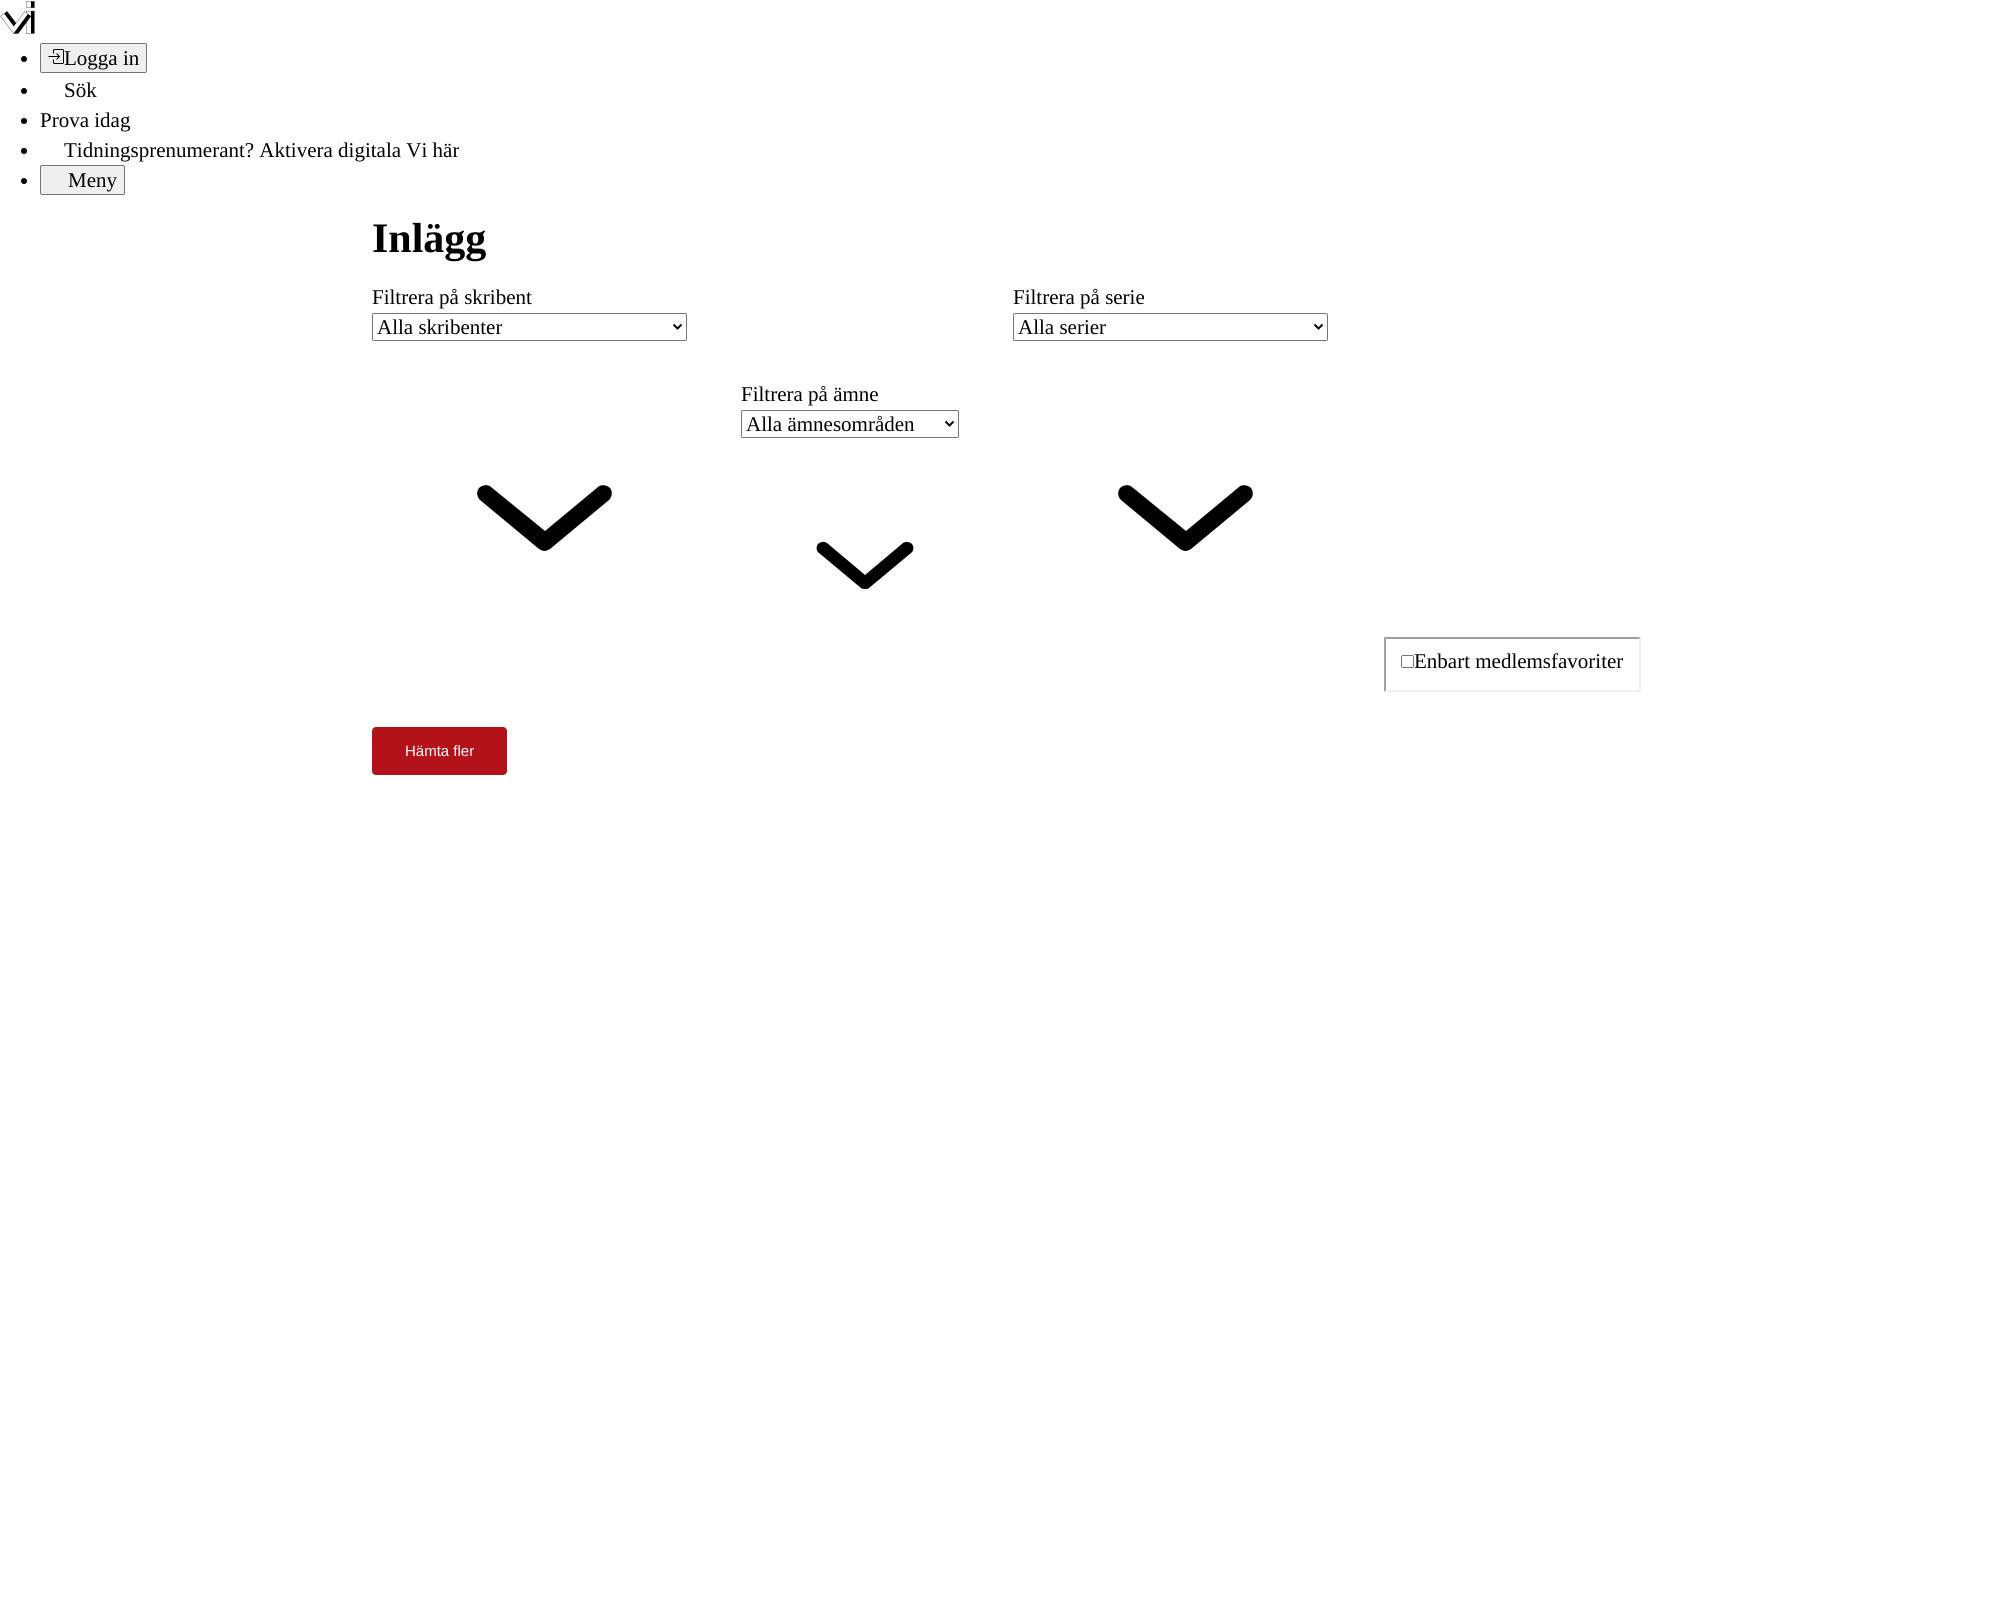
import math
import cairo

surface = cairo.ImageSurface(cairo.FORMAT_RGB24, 2015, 1605)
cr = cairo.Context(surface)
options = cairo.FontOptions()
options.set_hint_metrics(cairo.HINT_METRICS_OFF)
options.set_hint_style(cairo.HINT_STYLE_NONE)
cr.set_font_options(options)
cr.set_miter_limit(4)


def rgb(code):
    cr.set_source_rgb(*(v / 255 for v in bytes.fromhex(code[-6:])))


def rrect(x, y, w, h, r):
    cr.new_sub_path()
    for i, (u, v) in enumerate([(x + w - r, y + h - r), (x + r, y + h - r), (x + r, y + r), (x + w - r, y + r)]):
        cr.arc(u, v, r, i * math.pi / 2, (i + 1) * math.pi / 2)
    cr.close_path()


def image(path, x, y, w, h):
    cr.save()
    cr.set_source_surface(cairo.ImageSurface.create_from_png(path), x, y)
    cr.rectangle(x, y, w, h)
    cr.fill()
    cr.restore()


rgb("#ffffff")
cr.paint()
image("img/1.png", 0, 1, 35, 33)
rgb("#000000")
cr.arc(24, 59, 3, 0, 2 * math.pi)
cr.fill()
rgb("#efefef")
rrect(40.5, 43.5, 106, 29, 1.5)
cr.fill_preserve()
rgb("#767676")
cr.set_line_width(1)
cr.stroke()
image("img/2.png", 48, 49, 16, 15)
rgb("#000000")
cr.arc(24, 91, 3, 0, 2 * math.pi)
cr.fill()
cr.arc(24, 121, 3, 0, 2 * math.pi)
cr.fill()
cr.arc(24, 151, 3, 0, 2 * math.pi)
cr.fill()
cr.arc(24, 181, 3, 0, 2 * math.pi)
cr.fill()
rgb("#efefef")
rrect(40.5, 165.5, 84, 29, 1.5)
cr.fill_preserve()
rgb("#767676")
cr.stroke()
rrect(372.5, 313.5, 314, 27, 1.5)
cr.stroke()
cr.new_path()
cr.move_to(673.5, 324.5)
cr.line_to(677.5, 328.5)
cr.line_to(681.5, 324.5)
rgb("#000000")
cr.set_line_width(2)
cr.stroke()
cr.new_path()
cr.move_to(545, 551)
cr.curve_to(542, 551, 541, 550, 539, 549)
cr.line_to(480, 500)
cr.curve_to(477, 497, 476, 492, 479, 488)
cr.curve_to(482, 485, 488, 484, 491, 487)
cr.line_to(545, 531)
cr.line_to(598, 487)
cr.curve_to(601, 484, 607, 485, 610, 488)
cr.curve_to(613, 492, 612, 497, 609, 500)
cr.line_to(550, 549)
cr.curve_to(548, 550, 546, 551, 545, 551)
cr.close_path()
cr.fill()
rrect(1013.5, 313.5, 314, 27, 1.5)
rgb("#767676")
cr.set_line_width(1)
cr.stroke()
cr.new_path()
cr.move_to(1314.5, 324.5)
cr.line_to(1318.5, 328.5)
cr.line_to(1322.5, 324.5)
rgb("#000000")
cr.set_line_width(2)
cr.stroke()
cr.new_path()
cr.move_to(1186, 551)
cr.curve_to(1183, 551, 1182, 550, 1180, 549)
cr.line_to(1121, 500)
cr.curve_to(1118, 497, 1117, 492, 1120, 488)
cr.curve_to(1123, 485, 1129, 484, 1132, 487)
cr.line_to(1186, 531)
cr.line_to(1239, 487)
cr.curve_to(1242, 484, 1248, 485, 1251, 488)
cr.curve_to(1254, 492, 1253, 497, 1250, 500)
cr.line_to(1191, 549)
cr.curve_to(1189, 550, 1187, 551, 1186, 551)
cr.close_path()
cr.fill()
rrect(741.5, 410.5, 217, 27, 1.5)
rgb("#767676")
cr.set_line_width(1)
cr.stroke()
cr.new_path()
cr.move_to(945.5, 421.5)
cr.line_to(949.5, 425.5)
cr.line_to(953.5, 421.5)
rgb("#000000")
cr.set_line_width(2)
cr.stroke()
cr.new_path()
cr.move_to(865, 589)
cr.curve_to(864, 589, 862, 589, 861, 588)
cr.line_to(819, 553)
cr.curve_to(816, 551, 816, 547, 818, 544)
cr.curve_to(820, 542, 824, 541, 827, 543)
cr.line_to(865, 575)
cr.line_to(903, 543)
cr.curve_to(906, 541, 910, 542, 912, 544)
cr.curve_to(914, 547, 914, 551, 911, 553)
cr.line_to(869, 588)
cr.curve_to(868, 589, 866, 589, 865, 589)
cr.close_path()
cr.fill()
rgb("#9f9f9f")
cr.new_path()
cr.move_to(1384, 637)
cr.line_to(1641, 637)
cr.line_to(1639, 639)
cr.line_to(1386, 639)
cr.close_path()
cr.fill()
rgb("#efefef")
cr.new_path()
cr.move_to(1641, 637)
cr.line_to(1641, 692)
cr.line_to(1639, 690)
cr.line_to(1639, 639)
cr.close_path()
cr.fill()
cr.new_path()
cr.move_to(1641, 692)
cr.line_to(1384, 692)
cr.line_to(1386, 690)
cr.line_to(1639, 690)
cr.close_path()
cr.fill()
rgb("#9f9f9f")
cr.new_path()
cr.move_to(1384, 692)
cr.line_to(1384, 637)
cr.line_to(1386, 639)
cr.line_to(1386, 690)
cr.close_path()
cr.fill()
rrect(1401.5, 655.5, 12, 12, 1.5)
rgb("#767676")
cr.set_line_width(1)
cr.stroke()
rgb("#b31218")
rrect(372, 727, 135, 48, 4)
cr.fill()
cr.select_font_face("Liberation Serif")
cr.set_font_size(21)
rgb("#000000")
for x, y, s in [
    (64, 65, "Logga in"),
    (64, 97, "Sök"),
    (40, 127, "Prova idag"),
    (64, 157, "Tidningsprenumerant? Aktivera digitala Vi här"),
    (68, 187, "Meny"),
]:
    cr.move_to(x, y)
    cr.show_text(s)
cr.select_font_face("Liberation Serif", cairo.FONT_SLANT_NORMAL, cairo.FONT_WEIGHT_BOLD)
cr.set_font_size(42)
cr.move_to(372, 252)
cr.show_text("Inlägg")
cr.select_font_face("Liberation Serif")
cr.set_font_size(21)
for x, y, s in [
    (372, 304, "Filtrera på skribent"),
    (377, 334, "Alla skribenter"),
    (1013, 304, "Filtrera på serie"),
    (1018, 334, "Alla serier"),
    (741, 401, "Filtrera på ämne"),
    (746, 431, "Alla ämnesområden"),
    (1414, 668, "Enbart medlemsfavoriter"),
]:
    cr.move_to(x, y)
    cr.show_text(s)
cr.select_font_face("Liberation Sans")
cr.set_font_size(15)
rgb("#ffffff")
cr.move_to(405, 756)
cr.show_text("Hämta fler")
surface.write_to_png("page.png")
